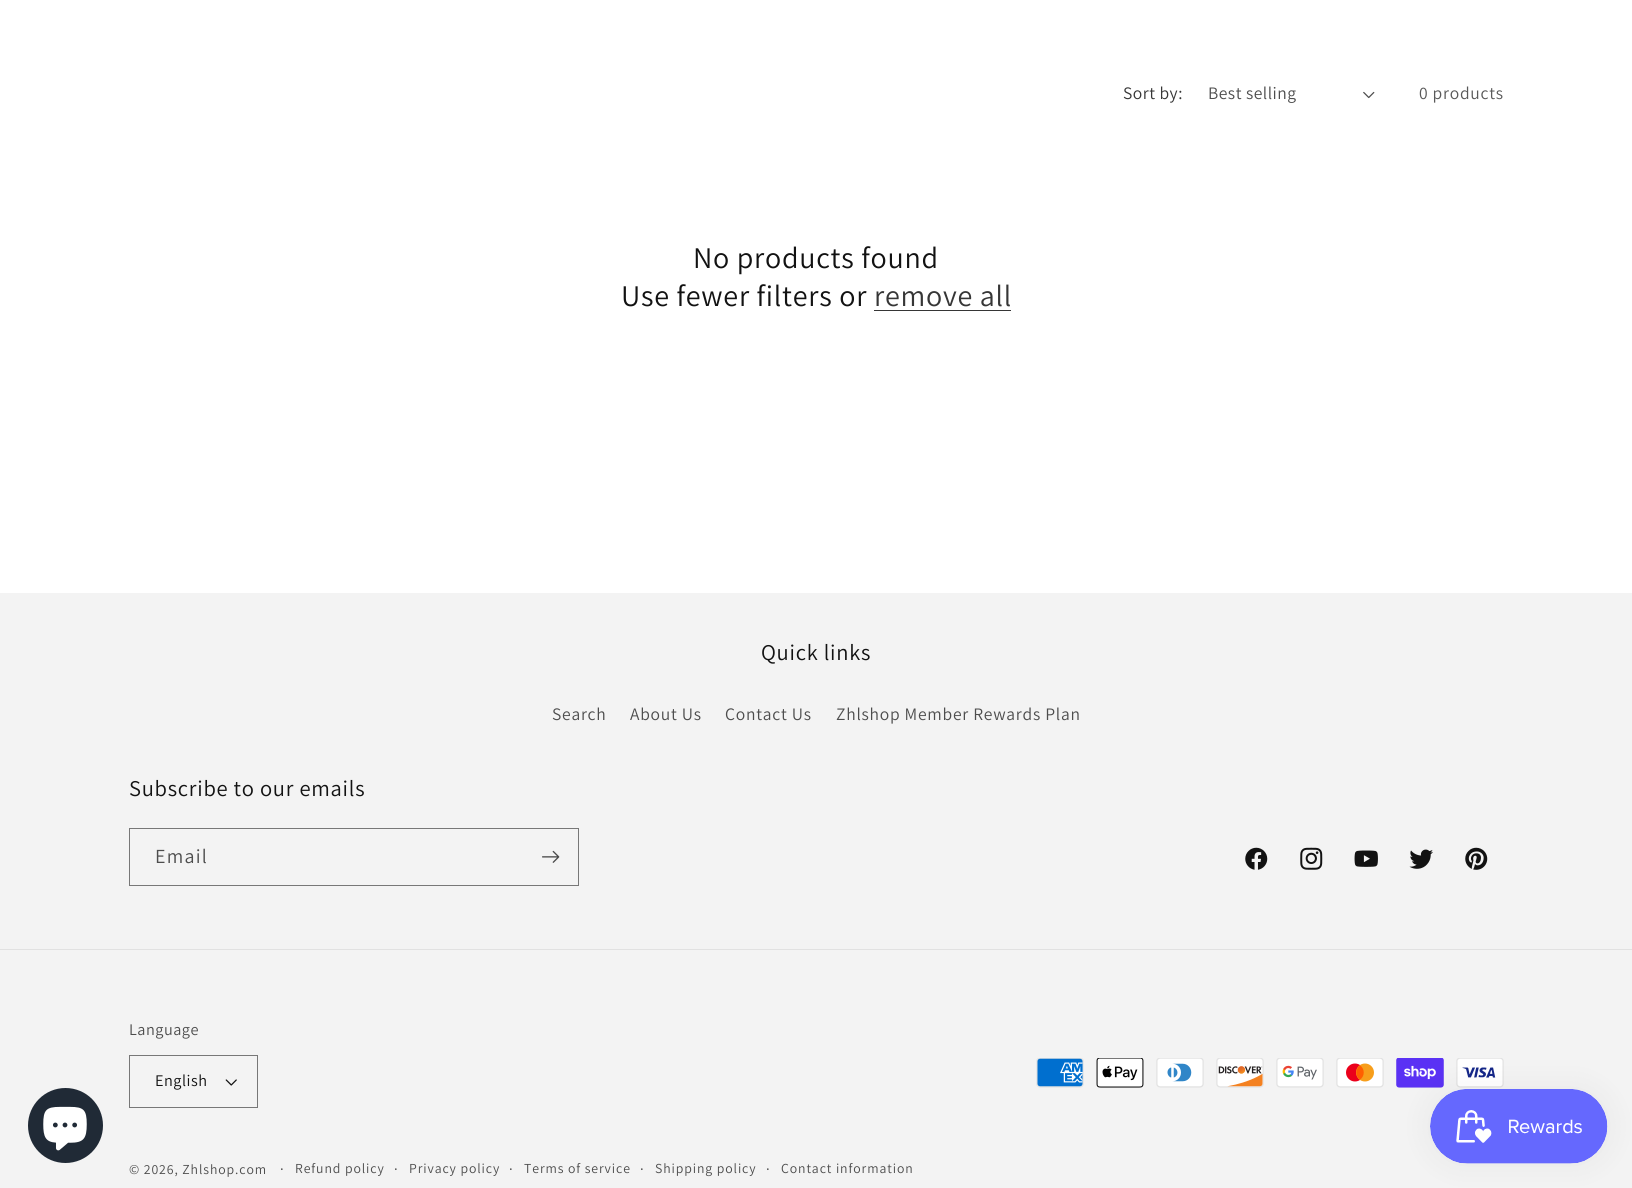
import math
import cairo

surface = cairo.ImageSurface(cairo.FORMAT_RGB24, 1632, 1188)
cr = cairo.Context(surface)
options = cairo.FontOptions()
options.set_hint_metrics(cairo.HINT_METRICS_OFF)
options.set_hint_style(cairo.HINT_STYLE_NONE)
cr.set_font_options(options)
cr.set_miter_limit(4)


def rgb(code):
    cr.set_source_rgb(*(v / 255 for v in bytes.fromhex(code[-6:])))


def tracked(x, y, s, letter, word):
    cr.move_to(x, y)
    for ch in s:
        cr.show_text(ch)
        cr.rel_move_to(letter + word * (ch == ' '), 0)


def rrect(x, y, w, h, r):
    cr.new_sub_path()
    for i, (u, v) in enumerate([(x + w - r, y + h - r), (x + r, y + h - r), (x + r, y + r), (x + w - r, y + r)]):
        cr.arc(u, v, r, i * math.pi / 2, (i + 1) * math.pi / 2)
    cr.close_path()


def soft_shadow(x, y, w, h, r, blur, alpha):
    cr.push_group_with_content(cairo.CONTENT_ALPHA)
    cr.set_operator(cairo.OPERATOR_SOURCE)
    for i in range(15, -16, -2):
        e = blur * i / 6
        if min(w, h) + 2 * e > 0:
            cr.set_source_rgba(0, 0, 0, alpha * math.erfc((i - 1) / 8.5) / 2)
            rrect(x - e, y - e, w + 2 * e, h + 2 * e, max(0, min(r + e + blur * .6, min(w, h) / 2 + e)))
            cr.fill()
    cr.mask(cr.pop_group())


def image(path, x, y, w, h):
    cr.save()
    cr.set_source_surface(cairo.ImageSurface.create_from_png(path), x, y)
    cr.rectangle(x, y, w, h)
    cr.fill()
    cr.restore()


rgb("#ffffff")
cr.paint()
image("img/1.png", 1363, 91, 12, 8)
rgb("#363636")
cr.rectangle(874, 310, 137, 1)
cr.fill()
rgb("#f3f3f3")
cr.rectangle(0, 593, 1632, 595)
cr.fill()
rgb("#202a36")
cr.arc(65.5, 1125.5, 37.5, 0, 2 * math.pi)
cr.fill()
image("img/2.png", 43, 1106, 44, 45)
cr.rectangle(129.5, 828.5, 449, 57)
rgb("#777777")
cr.set_line_width(1)
cr.stroke()
image("img/3.png", 542, 850, 18, 13)
image("img/4.png", 1245, 847, 23, 23)
image("img/5.png", 1300, 847, 23, 23)
image("img/6.png", 1354, 850, 24, 17)
image("img/7.png", 1409, 849, 24, 20)
image("img/8.png", 1465, 847, 23, 23)
rgb("#e1e1e1")
cr.rectangle(0, 949, 1632, 1)
cr.fill()
image("img/9.png", 225, 1079, 12, 7)
cr.rectangle(129.5, 1055.5, 128, 52)
rgb("#777777")
cr.stroke()
image("img/10.png", 1036, 1058, 48, 30)
image("img/11.png", 1096, 1058, 48, 30)
image("img/12.png", 1156, 1058, 48, 30)
image("img/13.png", 1216, 1058, 48, 30)
image("img/14.png", 1276, 1058, 48, 30)
image("img/15.png", 1336, 1058, 48, 30)
image("img/16.png", 1396, 1058, 48, 30)
image("img/17.png", 1456, 1058, 48, 30)
rgb("#000000")
soft_shadow(1430, 1089, 178, 75, 37.5, 15.5, 0.05)
image("img/18.png", 1430, 1089, 178, 75)
cr.select_font_face("Assistant")
cr.set_font_size(17.5)
rgb("#363636")
tracked(1123, 99, "Sort by:", 0.5, 0)
rgb("#4d4d4d")
tracked(1208, 99, "Best selling", 0.5, 0)
rgb("#595959")
tracked(1419, 99, "0 products", 0.75, 0)
cr.set_font_size(30)
rgb("#121212")
tracked(693, 268, "No products found", 0.75, 0)
tracked(621, 306, "Use fewer filters or", 0.75, 0)
rgb("#363636")
tracked(874, 306, "remove all", 0.75, 0)
cr.set_font_size(22.5)
rgb("#121212")
tracked(761, 660, "Quick links", 0.75, 0)
cr.set_font_size(17.5)
rgb("#4d4d4d")
for x, y, s in [
    (552, 720, "Search"),
    (630, 720, "About Us"),
    (725, 720, "Contact Us"),
    (836, 720, "Zhlshop Member Rewards Plan"),
]:
    tracked(x, y, s, 0.75, 0)
cr.set_font_size(22.5)
rgb("#121212")
tracked(129, 796, "Subscribe to our emails", 0.75, 0)
cr.set_font_size(20)
rgb("#4d4d4d")
tracked(155, 863, "Email", 1.25, 0)
cr.set_font_size(16.25)
tracked(129, 1035, "Language", 0.5, 0)
rgb("#121212")
tracked(155, 1086, "English", 0.5, 0)
cr.set_font_size(13.75)
rgb("#4d4d4d")
tracked(129, 1174, "© 2026, Zhlshop.com", 0.9, 0)
cr.set_font_size(15)
tracked(280, 1174, "·", 0.9, 0)
cr.set_font_size(13.75)
tracked(295, 1173, "Refund policy", 0.9, 0)
cr.set_font_size(15)
tracked(394, 1174, "·", 0.9, 0)
cr.set_font_size(13.75)
tracked(409, 1173, "Privacy policy", 0.9, 0)
cr.set_font_size(15)
tracked(509, 1174, "·", 0.9, 0)
cr.set_font_size(13.75)
tracked(524, 1173, "Terms of service", 0.9, 0)
cr.set_font_size(15)
tracked(640, 1174, "·", 0.9, 0)
cr.set_font_size(13.75)
tracked(655, 1173, "Shipping policy", 0.9, 0)
cr.set_font_size(15)
tracked(766, 1174, "·", 0.9, 0)
cr.set_font_size(13.75)
tracked(781, 1173, "Contact information", 0.9, 0)
surface.write_to_png("page.png")
